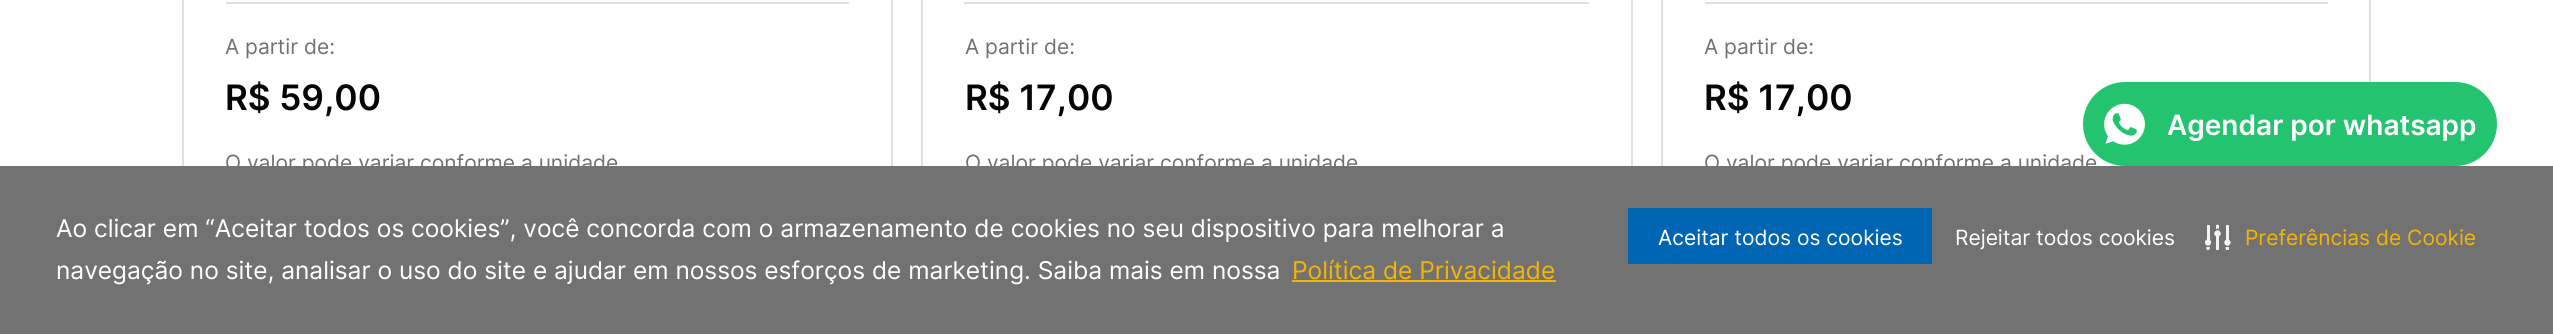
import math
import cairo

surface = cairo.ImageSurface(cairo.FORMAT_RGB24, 2553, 334)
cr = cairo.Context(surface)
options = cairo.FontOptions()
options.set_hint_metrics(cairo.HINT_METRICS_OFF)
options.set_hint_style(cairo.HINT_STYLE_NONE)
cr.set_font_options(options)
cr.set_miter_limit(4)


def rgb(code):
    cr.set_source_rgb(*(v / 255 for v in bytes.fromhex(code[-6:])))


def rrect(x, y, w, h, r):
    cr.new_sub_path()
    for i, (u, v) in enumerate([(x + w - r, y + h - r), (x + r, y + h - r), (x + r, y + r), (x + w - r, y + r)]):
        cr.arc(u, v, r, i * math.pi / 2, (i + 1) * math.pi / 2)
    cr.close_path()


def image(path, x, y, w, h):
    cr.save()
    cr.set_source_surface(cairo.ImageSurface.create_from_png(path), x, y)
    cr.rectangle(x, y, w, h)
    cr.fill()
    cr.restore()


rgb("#ffffff")
cr.paint()
cr.rectangle(183, -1, 709, 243)
rgb("#e0e0e0")
cr.stroke()
cr.rectangle(226, 2, 623, 2)
cr.fill()
cr.rectangle(922, -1, 710, 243)
cr.stroke()
cr.rectangle(964, 2, 625, 2)
cr.fill()
cr.rectangle(1662, -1, 708, 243)
cr.stroke()
cr.rectangle(1705, 2, 623, 2)
cr.fill()
cr.select_font_face("Inter")
cr.set_font_size(21)
rgb("#717171")
cr.move_to(225, 54)
cr.show_text("A partir de:")
cr.select_font_face("Inter SemiBold")
cr.set_font_size(35)
rgb("#050505")
cr.move_to(225, 110)
cr.show_text("R$ 59,00")
cr.select_font_face("Inter")
cr.set_font_size(21)
rgb("#717171")
cr.move_to(225, 170)
cr.show_text("O valor pode variar conforme a unidade")
cr.move_to(965, 54)
cr.show_text("A partir de:")
cr.select_font_face("Inter SemiBold")
cr.set_font_size(35)
rgb("#050505")
cr.move_to(965, 110)
cr.show_text("R$ 17,00")
cr.select_font_face("Inter")
cr.set_font_size(21)
rgb("#717171")
cr.move_to(965, 170)
cr.show_text("O valor pode variar conforme a unidade")
cr.move_to(1704, 54)
cr.show_text("A partir de:")
cr.select_font_face("Inter SemiBold")
cr.set_font_size(35)
rgb("#050505")
cr.move_to(1704, 110)
cr.show_text("R$ 17,00")
cr.select_font_face("Inter")
cr.set_font_size(21)
rgb("#717171")
cr.move_to(1704, 170)
cr.show_text("O valor pode variar conforme a unidade")
rgb("#23c36f")
rrect(2083, 82, 414, 84, 42)
cr.fill()
image("img/1.png", 2104, 103, 41, 42)
cr.select_font_face("Inter SemiBold")
cr.set_font_size(28)
rgb("#ffffff")
cr.move_to(2167, 135)
cr.show_text("Agendar por whatsapp")
rgb("#727272")
cr.rectangle(0, 166, 2553, 168)
cr.fill()
cr.select_font_face("Inter")
cr.set_font_size(24.5)
rgb("#ffffff")
cr.move_to(56, 237)
cr.show_text("Ao clicar em “Aceitar todos os cookies”, você concorda com o armazenamento de cookies no seu dispositivo para melhorar a")
cr.move_to(56, 279)
cr.show_text("navegação no site, analisar o uso do site e ajudar em nossos esforços de marketing. Saiba mais em nossa")
rgb("#f2b407")
cr.move_to(1292, 279)
cr.show_text("Política de Privacidade")
cr.rectangle(1292, 280, 264, 2)
cr.fill()
rgb("#0065b3")
cr.rectangle(1628, 208, 304, 56)
cr.fill()
cr.set_font_size(21)
rgb("#ffffff")
cr.move_to(1658, 245)
cr.show_text("Aceitar todos os cookies")
cr.move_to(1955, 245)
cr.show_text("Rejeitar todos cookies")
image("img/2.png", 2205, 224, 26, 26)
rgb("#f2b407")
cr.move_to(2245, 245)
cr.show_text("Preferências de Cookie")
surface.write_to_png("page.png")
